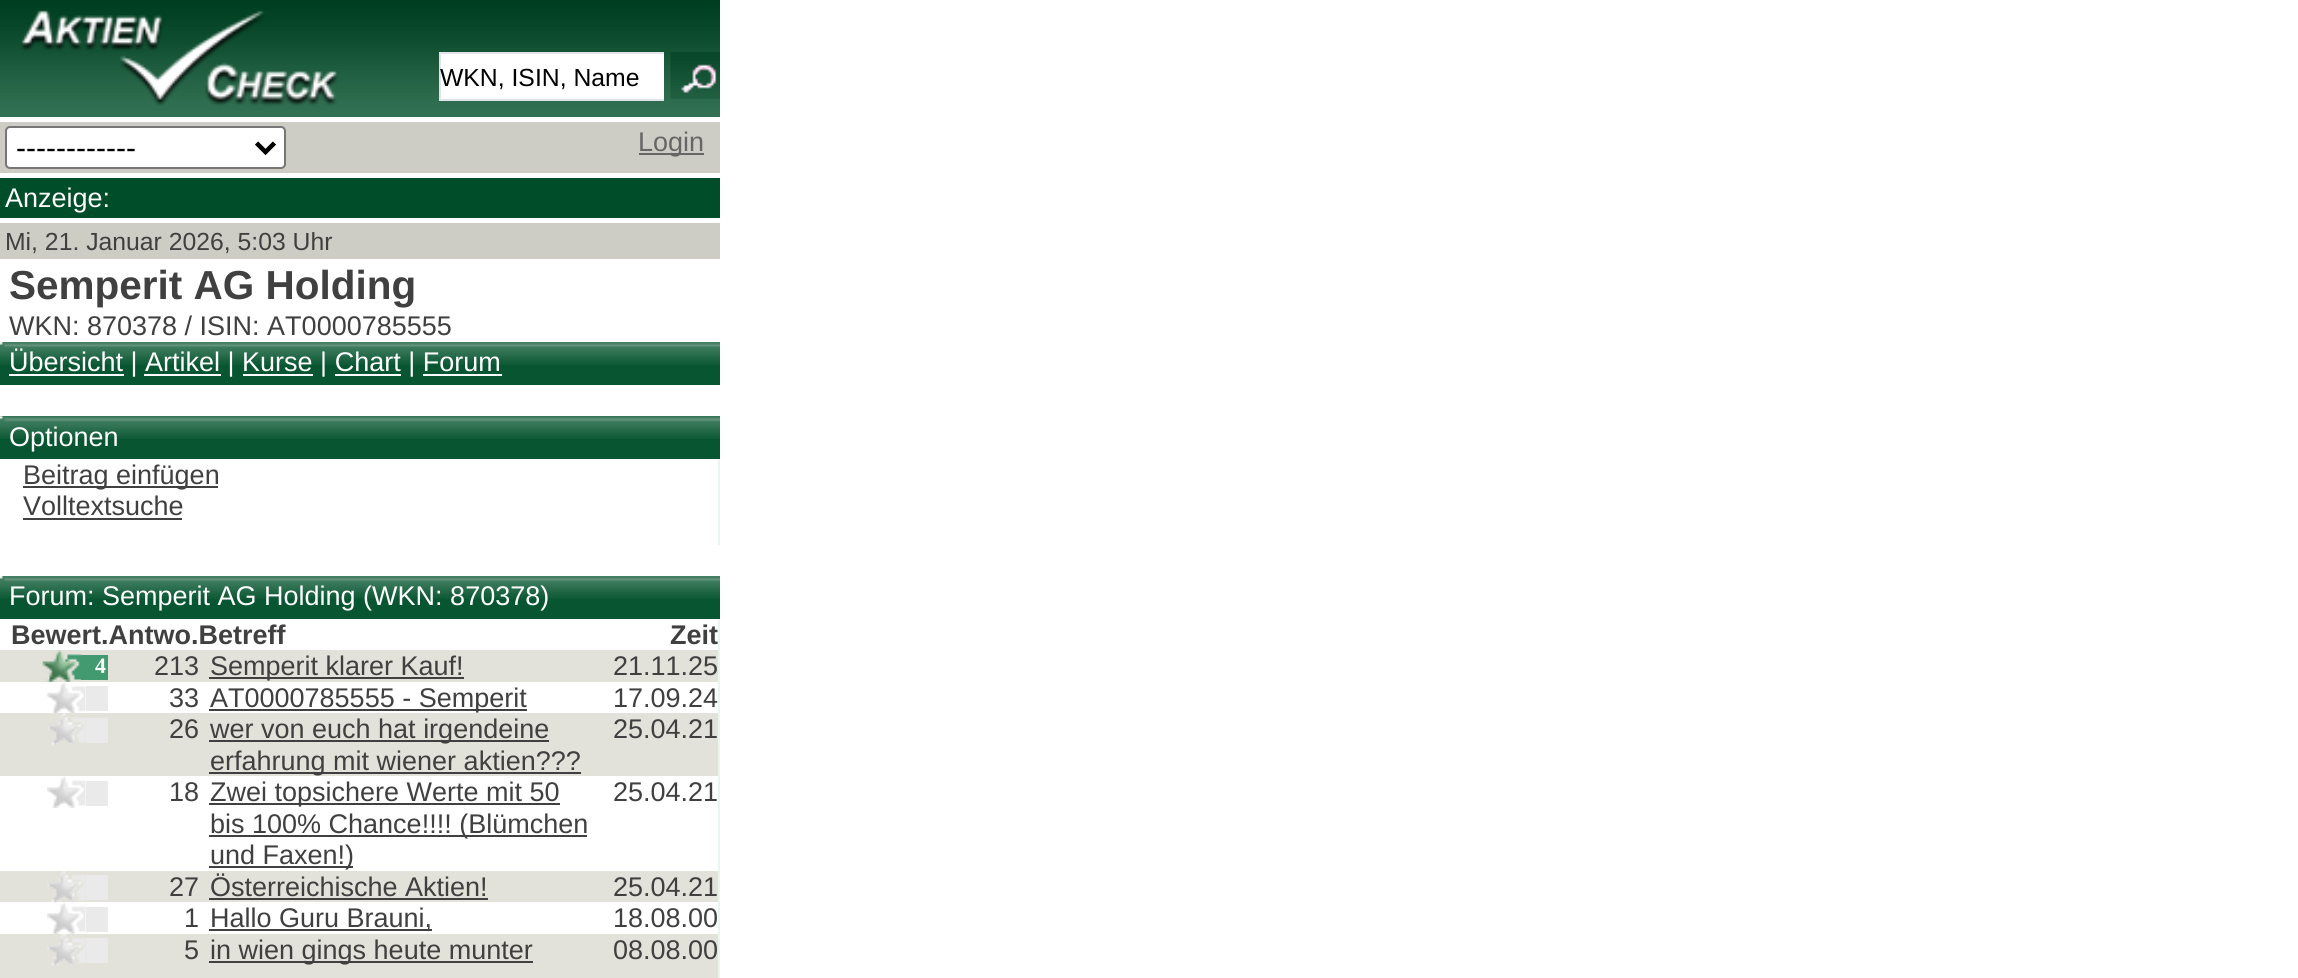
import math
import cairo

surface = cairo.ImageSurface(cairo.FORMAT_RGB24, 2298, 978)
cr = cairo.Context(surface)
options = cairo.FontOptions()
options.set_hint_metrics(cairo.HINT_METRICS_OFF)
options.set_hint_style(cairo.HINT_STYLE_NONE)
cr.set_font_options(options)
cr.set_miter_limit(4)


def rgb(code):
    cr.set_source_rgb(*(v / 255 for v in bytes.fromhex(code[-6:])))


def rrect(x, y, w, h, r):
    cr.new_sub_path()
    for i, (u, v) in enumerate([(x + w - r, y + h - r), (x + r, y + h - r), (x + r, y + r), (x + w - r, y + r)]):
        cr.arc(u, v, r, i * math.pi / 2, (i + 1) * math.pi / 2)
    cr.close_path()


def image(path, x, y, w, h):
    cr.save()
    cr.set_source_surface(cairo.ImageSurface.create_from_png(path), x, y)
    cr.rectangle(x, y, w, h)
    cr.fill()
    cr.restore()


rgb("#ffffff")
cr.paint()
image("img/1.png", 0, 0, 720, 117)
image("img/2.png", 20, 10, 318, 96)
for x, y, w, h, color in [
    (441, 54, 223, 45, "#ffffff"),
    (439, 52, 225, 2, "#e2e3ea"),
    (439, 99, 225, 2, "#e2e3ea"),
    (439, 52, 2, 49, "#e2e3ea"),
]:
    rgb(color)
    cr.rectangle(x, y, w, h)
    cr.fill()
image("img/3.png", 670, 52, 50, 47)
rgb("#cdcdc5")
cr.rectangle(0, 122, 720, 51)
cr.fill()
rgb("#ffffff")
rrect(6, 127, 279, 41, 4)
cr.fill_preserve()
rgb("#767676")
cr.stroke()
cr.new_path()
cr.move_to(256.5, 143)
cr.line_to(265.5, 152)
cr.line_to(274.5, 143)
rgb("#000000")
cr.set_line_width(4.5)
cr.stroke()
for x, y, w, h, color in [
    (639, 153, 65, 2, "#666666"),
    (0, 178, 720, 40, "#004e29"),
    (0, 223, 720, 36, "#cdcdc5"),
    (0, 365, 720, 20, "#085631"),
]:
    rgb(color)
    cr.rectangle(x, y, w, h)
    cr.fill()
image("img/4.png", 0, 342, 720, 23)
for x, y, w, h, color in [
    (9, 374, 115, 2, "#ffffff"),
    (144, 374, 77, 2, "#ffffff"),
    (243, 374, 70, 2, "#ffffff"),
    (335, 374, 66, 2, "#ffffff"),
    (423, 374, 79, 2, "#ffffff"),
    (0, 416, 720, 43, "#085631"),
]:
    rgb(color)
    cr.rectangle(x, y, w, h)
    cr.fill()
image("img/5.png", 0, 416, 720, 23)
for x, y, w, h, color in [
    (718, 459, 2, 86, "#ebf5ed"),
    (23, 486, 195, 2, "#404040"),
    (23, 518, 159, 2, "#404040"),
    (0, 599, 720, 20, "#085631"),
]:
    rgb(color)
    cr.rectangle(x, y, w, h)
    cr.fill()
image("img/6.png", 0, 576, 720, 23)
rgb("#ebf5ed")
cr.rectangle(718, 619, 2, 359)
cr.fill()
rgb("#e3e2da")
cr.rectangle(0, 650, 718, 32)
cr.fill()
image("img/7.png", 42, 650, 39, 32)
for x, y, w, h, color in [
    (81, 655, 27, 25, "#429a70"),
    (209, 677, 255, 2, "#404040"),
    (0, 713, 718, 63, "#e3e2da"),
]:
    rgb(color)
    cr.rectangle(x, y, w, h)
    cr.fill()
image("img/8.png", 47, 681, 39, 33)
rgb("#eaeaea")
cr.rectangle(86, 686, 22, 25)
cr.fill()
rgb("#404040")
cr.rectangle(209, 709, 318, 2)
cr.fill()
image("img/9.png", 47, 713, 39, 32)
for x, y, w, h, color in [
    (86, 718, 22, 25, "#eaeaea"),
    (209, 740, 340, 2, "#404040"),
    (209, 772, 372, 2, "#404040"),
]:
    rgb(color)
    cr.rectangle(x, y, w, h)
    cr.fill()
image("img/10.png", 47, 776, 39, 32)
for x, y, w, h, color in [
    (86, 781, 22, 25, "#eaeaea"),
    (209, 803, 351, 2, "#404040"),
    (209, 835, 378, 2, "#404040"),
    (209, 866, 144, 2, "#404040"),
    (0, 871, 718, 31, "#e3e2da"),
]:
    rgb(color)
    cr.rectangle(x, y, w, h)
    cr.fill()
image("img/11.png", 47, 871, 39, 32)
rgb("#eaeaea")
cr.rectangle(86, 875, 22, 25)
cr.fill()
rgb("#404040")
cr.rectangle(209, 898, 279, 2)
cr.fill()
image("img/12.png", 47, 902, 39, 32)
for x, y, w, h, color in [
    (86, 907, 22, 25, "#eaeaea"),
    (209, 929, 223, 2, "#404040"),
    (0, 934, 718, 44, "#e3e2da"),
]:
    rgb(color)
    cr.rectangle(x, y, w, h)
    cr.fill()
image("img/13.png", 47, 934, 39, 32)
rgb("#eaeaea")
cr.rectangle(86, 938, 22, 25)
cr.fill()
rgb("#404040")
cr.rectangle(209, 961, 324, 2)
cr.fill()
cr.select_font_face("Liberation Sans")
cr.set_font_size(24.75)
rgb("#000000")
cr.move_to(440, 86)
cr.show_text("WKN, ISIN, Name")
cr.set_font_size(30)
cr.move_to(16, 158)
cr.show_text("------------")
cr.set_font_size(27)
rgb("#666666")
cr.move_to(638, 151)
cr.show_text("Login")
rgb("#ffffff")
cr.move_to(5, 207)
cr.show_text("Anzeige:")
cr.set_font_size(24.75)
rgb("#404040")
cr.move_to(5, 250)
cr.show_text("Mi, 21. Januar 2026, 5:03 Uhr")
cr.select_font_face("Liberation Sans", cairo.FONT_SLANT_NORMAL, cairo.FONT_WEIGHT_BOLD)
cr.set_font_size(40.5)
cr.move_to(9, 299)
cr.show_text("Semperit AG Holding")
cr.select_font_face("Liberation Sans")
cr.set_font_size(27)
cr.move_to(9, 335)
cr.show_text("WKN: 870378 / ISIN: AT0000785555")
rgb("#ffffff")
cr.move_to(9, 371)
cr.show_text("Übersicht | Artikel | Kurse | Chart | Forum")
cr.move_to(9, 446)
cr.show_text("Optionen")
rgb("#404040")
cr.move_to(23, 484)
cr.show_text("Beitrag einfügen")
cr.move_to(23, 515)
cr.show_text("Volltextsuche")
rgb("#ffffff")
cr.move_to(9, 605)
cr.show_text("Forum: Semperit AG Holding (WKN: 870378)")
cr.select_font_face("Liberation Sans", cairo.FONT_SLANT_NORMAL, cairo.FONT_WEIGHT_BOLD)
rgb("#404040")
cr.move_to(11, 644)
cr.show_text("Bewert.Antwo.Betreff")
cr.move_to(670, 644)
cr.show_text("Zeit")
cr.select_font_face("Liberation Serif", cairo.FONT_SLANT_NORMAL, cairo.FONT_WEIGHT_BOLD)
cr.set_font_size(22)
rgb("#ffffff")
cr.move_to(95, 673)
cr.show_text("4")
cr.select_font_face("Liberation Sans")
cr.set_font_size(27)
rgb("#404040")
for x, y, s in [
    (154, 675, "213"),
    (210, 675, "Semperit klarer Kauf!"),
    (613, 675, "21.11.25"),
    (169, 707, "33"),
    (210, 707, "AT0000785555 - Semperit"),
    (613, 707, "17.09.24"),
    (169, 738, "26"),
    (210, 738, "wer von euch hat irgendeine"),
    (210, 770, "erfahrung mit wiener aktien???"),
    (613, 738, "25.04.21"),
    (169, 801, "18"),
    (210, 801, "Zwei topsichere Werte mit 50"),
    (210, 833, "bis 100% Chance!!!! (Blümchen"),
    (210, 864, "und Faxen!)"),
    (613, 801, "25.04.21"),
    (169, 896, "27"),
    (210, 896, "Österreichische Aktien!"),
    (613, 896, "25.04.21"),
    (184, 927, "1"),
    (210, 927, "Hallo Guru Brauni,"),
    (613, 927, "18.08.00"),
    (184, 959, "5"),
    (210, 959, "in wien gings heute munter"),
    (613, 959, "08.08.00"),
]:
    cr.move_to(x, y)
    cr.show_text(s)
surface.write_to_png("page.png")
